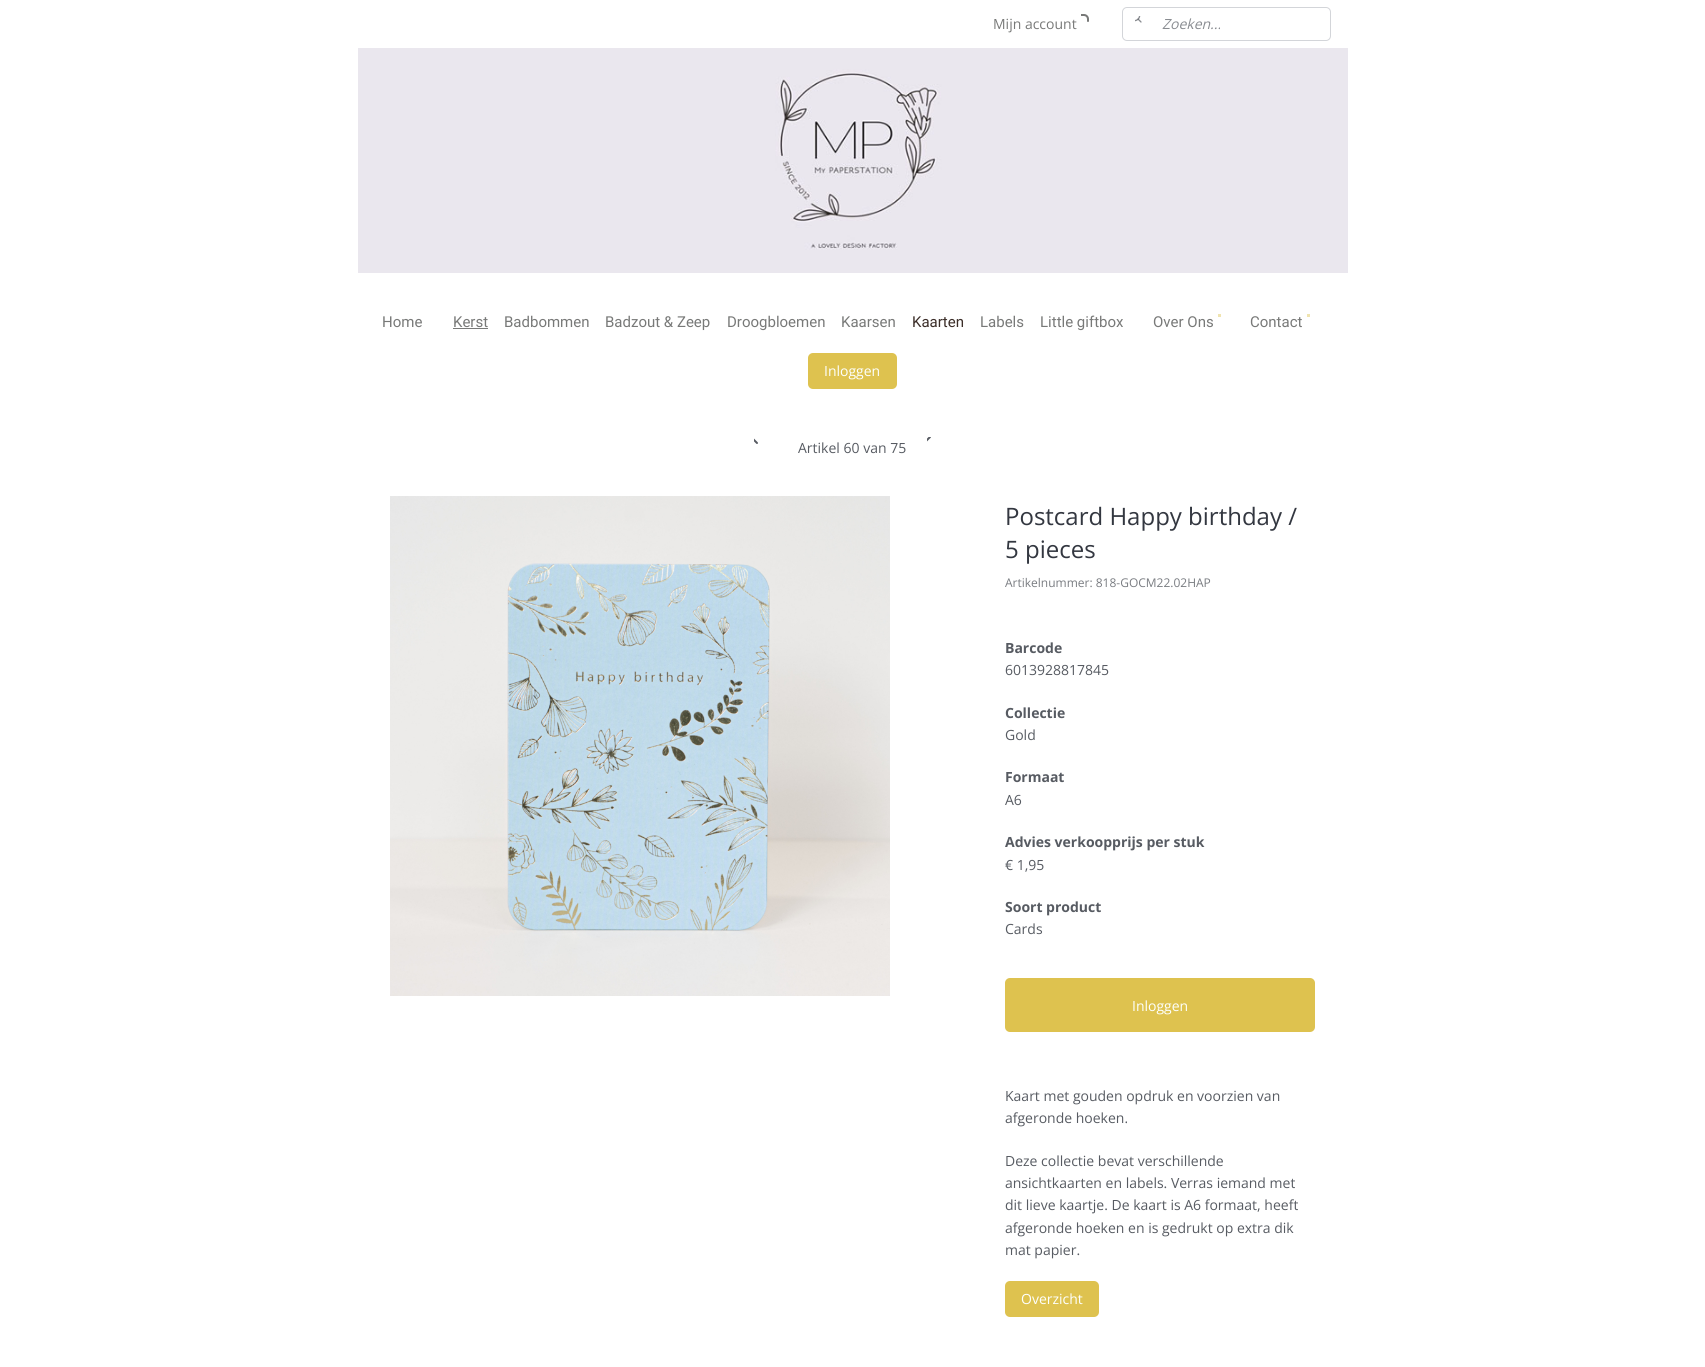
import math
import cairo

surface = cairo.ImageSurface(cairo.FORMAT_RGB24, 1705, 1367)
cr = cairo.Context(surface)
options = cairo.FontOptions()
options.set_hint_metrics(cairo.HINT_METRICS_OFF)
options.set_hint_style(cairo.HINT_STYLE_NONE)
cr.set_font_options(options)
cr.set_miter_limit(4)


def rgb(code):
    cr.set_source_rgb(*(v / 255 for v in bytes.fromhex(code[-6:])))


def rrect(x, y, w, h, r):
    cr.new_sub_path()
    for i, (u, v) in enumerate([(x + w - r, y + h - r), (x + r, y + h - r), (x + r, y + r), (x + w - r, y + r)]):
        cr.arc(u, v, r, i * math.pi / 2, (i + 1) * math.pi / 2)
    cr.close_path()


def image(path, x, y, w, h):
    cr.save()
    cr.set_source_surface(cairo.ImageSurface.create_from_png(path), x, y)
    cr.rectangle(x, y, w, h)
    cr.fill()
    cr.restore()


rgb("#ffffff")
cr.paint()
image("img/1.png", 1081, 14, 8, 8)
rrect(1122.5, 7.5, 208, 33, 4.5)
rgb("#d3d5d9")
cr.set_line_width(1)
cr.stroke()
image("img/2.png", 1135, 16, 7, 7)
image("img/3.png", 358, 48, 990, 225)
for x, y, w, h, color in [
    (453, 328, 35, 1, "#787978"),
    (1218, 314, 3, 3, "#f0e4b0"),
    (1307, 314, 3, 3, "#f0e4b0"),
]:
    rgb(color)
    cr.rectangle(x, y, w, h)
    cr.fill()
rgb("#dec24f")
rrect(808, 353, 89, 36, 5)
cr.fill()
image("img/4.png", 754, 438, 4, 6)
image("img/5.png", 927, 437, 4, 5)
image("img/6.png", 390, 496, 500, 500)
rrect(1005, 978, 310, 54, 5)
cr.fill()
rrect(1005, 1281, 94, 36, 5)
cr.fill()
cr.select_font_face("Open Sans")
cr.set_font_size(14)
rgb("#787978")
cr.move_to(993, 29)
cr.show_text("Mijn account")
cr.select_font_face("Open Sans", cairo.FONT_SLANT_ITALIC)
rgb("#898c91")
cr.move_to(1162, 29)
cr.show_text("Zoeken...")
cr.select_font_face("Roboto")
cr.set_font_size(15)
rgb("#787978")
for x, y, s in [
    (382, 327, "Home"),
    (453, 327, "Kerst"),
    (504, 327, "Badbommen"),
    (605, 327, "Badzout & Zeep"),
    (727, 327, "Droogbloemen"),
    (841, 327, "Kaarsen"),
]:
    cr.move_to(x, y)
    cr.show_text(s)
rgb("#3b2d28")
cr.move_to(912, 327)
cr.show_text("Kaarten")
rgb("#787978")
for x, y, s in [
    (980, 327, "Labels"),
    (1040, 327, "Little giftbox"),
    (1153, 327, "Over Ons"),
    (1250, 327, "Contact"),
]:
    cr.move_to(x, y)
    cr.show_text(s)
cr.select_font_face("Open Sans")
cr.set_font_size(14)
rgb("#fdfffd")
cr.move_to(824, 376)
cr.show_text("Inloggen")
rgb("#575b62")
cr.move_to(798, 453)
cr.show_text("Artikel 60 van 75")
cr.set_font_size(24)
rgb("#333740")
cr.move_to(1005, 525)
cr.show_text("Postcard Happy birthday /")
cr.move_to(1005, 558)
cr.show_text("5 pieces")
cr.set_font_size(12)
rgb("#797c81")
cr.move_to(1005, 587)
cr.show_text("Artikelnummer: 818-GOCM22.02HAP")
cr.select_font_face("Open Sans", cairo.FONT_SLANT_NORMAL, cairo.FONT_WEIGHT_BOLD)
cr.set_font_size(14)
rgb("#575b62")
cr.move_to(1005, 653)
cr.show_text("Barcode")
cr.select_font_face("Open Sans")
cr.move_to(1005, 675)
cr.show_text("6013928817845")
cr.select_font_face("Open Sans", cairo.FONT_SLANT_NORMAL, cairo.FONT_WEIGHT_BOLD)
cr.move_to(1005, 718)
cr.show_text("Collectie")
cr.select_font_face("Open Sans")
cr.move_to(1005, 740)
cr.show_text("Gold")
cr.select_font_face("Open Sans", cairo.FONT_SLANT_NORMAL, cairo.FONT_WEIGHT_BOLD)
cr.move_to(1005, 782)
cr.show_text("Formaat")
cr.select_font_face("Open Sans")
cr.move_to(1005, 805)
cr.show_text("A6")
cr.select_font_face("Open Sans", cairo.FONT_SLANT_NORMAL, cairo.FONT_WEIGHT_BOLD)
cr.move_to(1005, 847)
cr.show_text("Advies verkoopprijs per stuk")
cr.select_font_face("Open Sans")
cr.move_to(1005, 870)
cr.show_text("€ 1,95")
cr.select_font_face("Open Sans", cairo.FONT_SLANT_NORMAL, cairo.FONT_WEIGHT_BOLD)
cr.move_to(1005, 912)
cr.show_text("Soort product")
cr.select_font_face("Open Sans")
cr.move_to(1005, 934)
cr.show_text("Cards")
rgb("#fdfffd")
cr.move_to(1132, 1011)
cr.show_text("Inloggen")
rgb("#575b62")
for x, y, s in [
    (1005, 1101, "Kaart met gouden opdruk en voorzien van"),
    (1005, 1123, "afgeronde hoeken."),
    (1005, 1166, "Deze collectie bevat verschillende"),
    (1005, 1188, "ansichtkaarten en labels. Verras iemand met"),
    (1005, 1210, "dit lieve kaartje. De kaart is A6 formaat, heeft"),
    (1005, 1233, "afgeronde hoeken en is gedrukt op extra dik"),
    (1005, 1255, "mat papier."),
]:
    cr.move_to(x, y)
    cr.show_text(s)
rgb("#fdfffd")
cr.move_to(1021, 1304)
cr.show_text("Overzicht")
surface.write_to_png("page.png")
